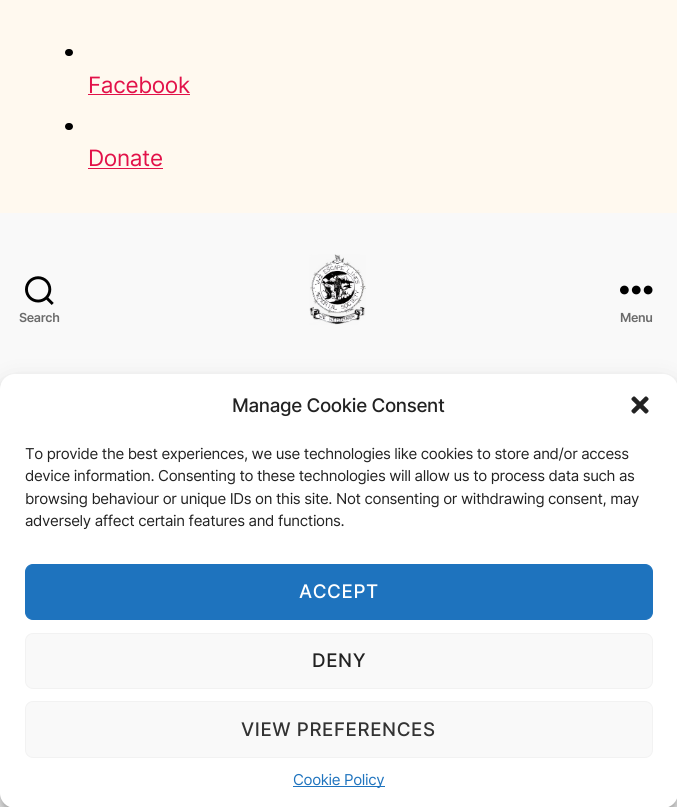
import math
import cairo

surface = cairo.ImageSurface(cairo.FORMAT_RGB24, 677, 807)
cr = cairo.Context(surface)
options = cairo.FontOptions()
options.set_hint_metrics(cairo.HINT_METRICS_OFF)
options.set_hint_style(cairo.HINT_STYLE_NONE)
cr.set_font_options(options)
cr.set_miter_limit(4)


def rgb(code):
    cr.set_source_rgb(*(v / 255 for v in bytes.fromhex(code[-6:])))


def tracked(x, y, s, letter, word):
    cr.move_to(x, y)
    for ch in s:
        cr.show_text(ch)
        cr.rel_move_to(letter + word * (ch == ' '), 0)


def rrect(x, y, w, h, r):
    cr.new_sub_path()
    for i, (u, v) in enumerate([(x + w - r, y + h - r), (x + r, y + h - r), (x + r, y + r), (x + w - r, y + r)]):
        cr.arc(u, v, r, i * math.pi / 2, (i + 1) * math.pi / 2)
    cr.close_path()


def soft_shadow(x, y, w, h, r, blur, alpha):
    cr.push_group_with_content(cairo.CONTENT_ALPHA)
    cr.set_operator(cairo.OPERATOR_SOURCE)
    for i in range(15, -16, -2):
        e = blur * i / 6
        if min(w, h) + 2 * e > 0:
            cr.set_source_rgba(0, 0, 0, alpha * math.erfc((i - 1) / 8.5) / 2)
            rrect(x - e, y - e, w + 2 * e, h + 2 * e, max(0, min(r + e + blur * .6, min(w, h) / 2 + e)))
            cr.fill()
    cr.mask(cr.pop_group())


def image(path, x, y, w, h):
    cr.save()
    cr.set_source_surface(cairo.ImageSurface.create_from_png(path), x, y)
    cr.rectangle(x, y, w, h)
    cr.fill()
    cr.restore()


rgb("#fff9ef")
cr.paint()
rgb("#000000")
rrect(65, 49, 8, 7, 3.5)
cr.fill()
rgb("#e21249")
cr.rectangle(88, 94, 102, 1)
cr.fill()
rgb("#000000")
rrect(65, 123, 8, 7, 3.5)
cr.fill()
rgb("#e21249")
cr.rectangle(88, 168, 75, 1)
cr.fill()
rgb("#f9f9f9")
cr.rectangle(0, 213, 677, 176)
cr.fill()
image("img/1.png", 25, 276, 29, 29)
image("img/2.png", 309, 254, 57, 71)
image("img/3.png", 620, 285, 33, 10)
cr.rectangle(0, 793, 677, 14)
cr.fill()
rgb("#000000")
soft_shadow(0, 381, 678, 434, 15, 4, 0.23)
soft_shadow(0, 386, 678, 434, 15, 12.5, 0.19)
rgb("#ffffff")
rrect(0, 374, 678, 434, 15)
cr.fill()
image("img/4.png", 631, 396, 18, 18)
rgb("#1e73be")
rrect(25.5, 564.5, 627, 55, 7.5)
cr.fill_preserve()
cr.set_line_width(1)
cr.stroke()
rgb("#f9f9f9")
rrect(25.5, 633.5, 627, 55, 7.5)
cr.fill_preserve()
rgb("#f2f2f2")
cr.stroke()
rgb("#f9f9f9")
rrect(25.5, 701.5, 627, 56, 7.5)
cr.fill_preserve()
rgb("#f2f2f2")
cr.stroke()
rgb("#1e73be")
cr.rectangle(293, 786, 92, 1)
cr.fill()
cr.select_font_face("Inter")
cr.set_font_size(22.5)
rgb("#e21249")
tracked(88, 93, "Facebook", -0.35, 0)
tracked(88, 166, "Donate", -0.35, 0)
cr.select_font_face("Inter SemiBold")
cr.set_font_size(12.5)
rgb("#6b6b6b")
tracked(19, 322, "Search", -0.35, 0)
tracked(620, 322, "Menu", -0.35, 0)
cr.select_font_face("Inter Medium")
cr.set_font_size(18.75)
rgb("#222222")
tracked(232, 412, "Manage Cookie Consent", -0.35, 0)
cr.select_font_face("Inter")
cr.set_font_size(15)
for x, y, s in [
    (25, 459, "To provide the best experiences, we use technologies like cookies to store and/or access"),
    (25, 481, "device information. Consenting to these technologies will allow us to process data such as"),
    (25, 504, "browsing behaviour or unique IDs on this site. Not consenting or withdrawing consent, may"),
    (25, 526, "adversely affect certain features and functions."),
]:
    tracked(x, y, s, -0.35, 0)
cr.select_font_face("Inter Medium")
cr.set_font_size(18.75)
rgb("#ffffff")
tracked(299, 598, "ACCEPT", 0.6, 0)
rgb("#222222")
tracked(312, 667, "DENY", 0.6, 0)
rgb("#333333")
tracked(241, 736, "VIEW PREFERENCES", 0.6, 0)
cr.select_font_face("Inter")
cr.set_font_size(15)
rgb("#1e73be")
tracked(293, 785, "Cookie Policy", -0.35, 0)
surface.write_to_png("page.png")
